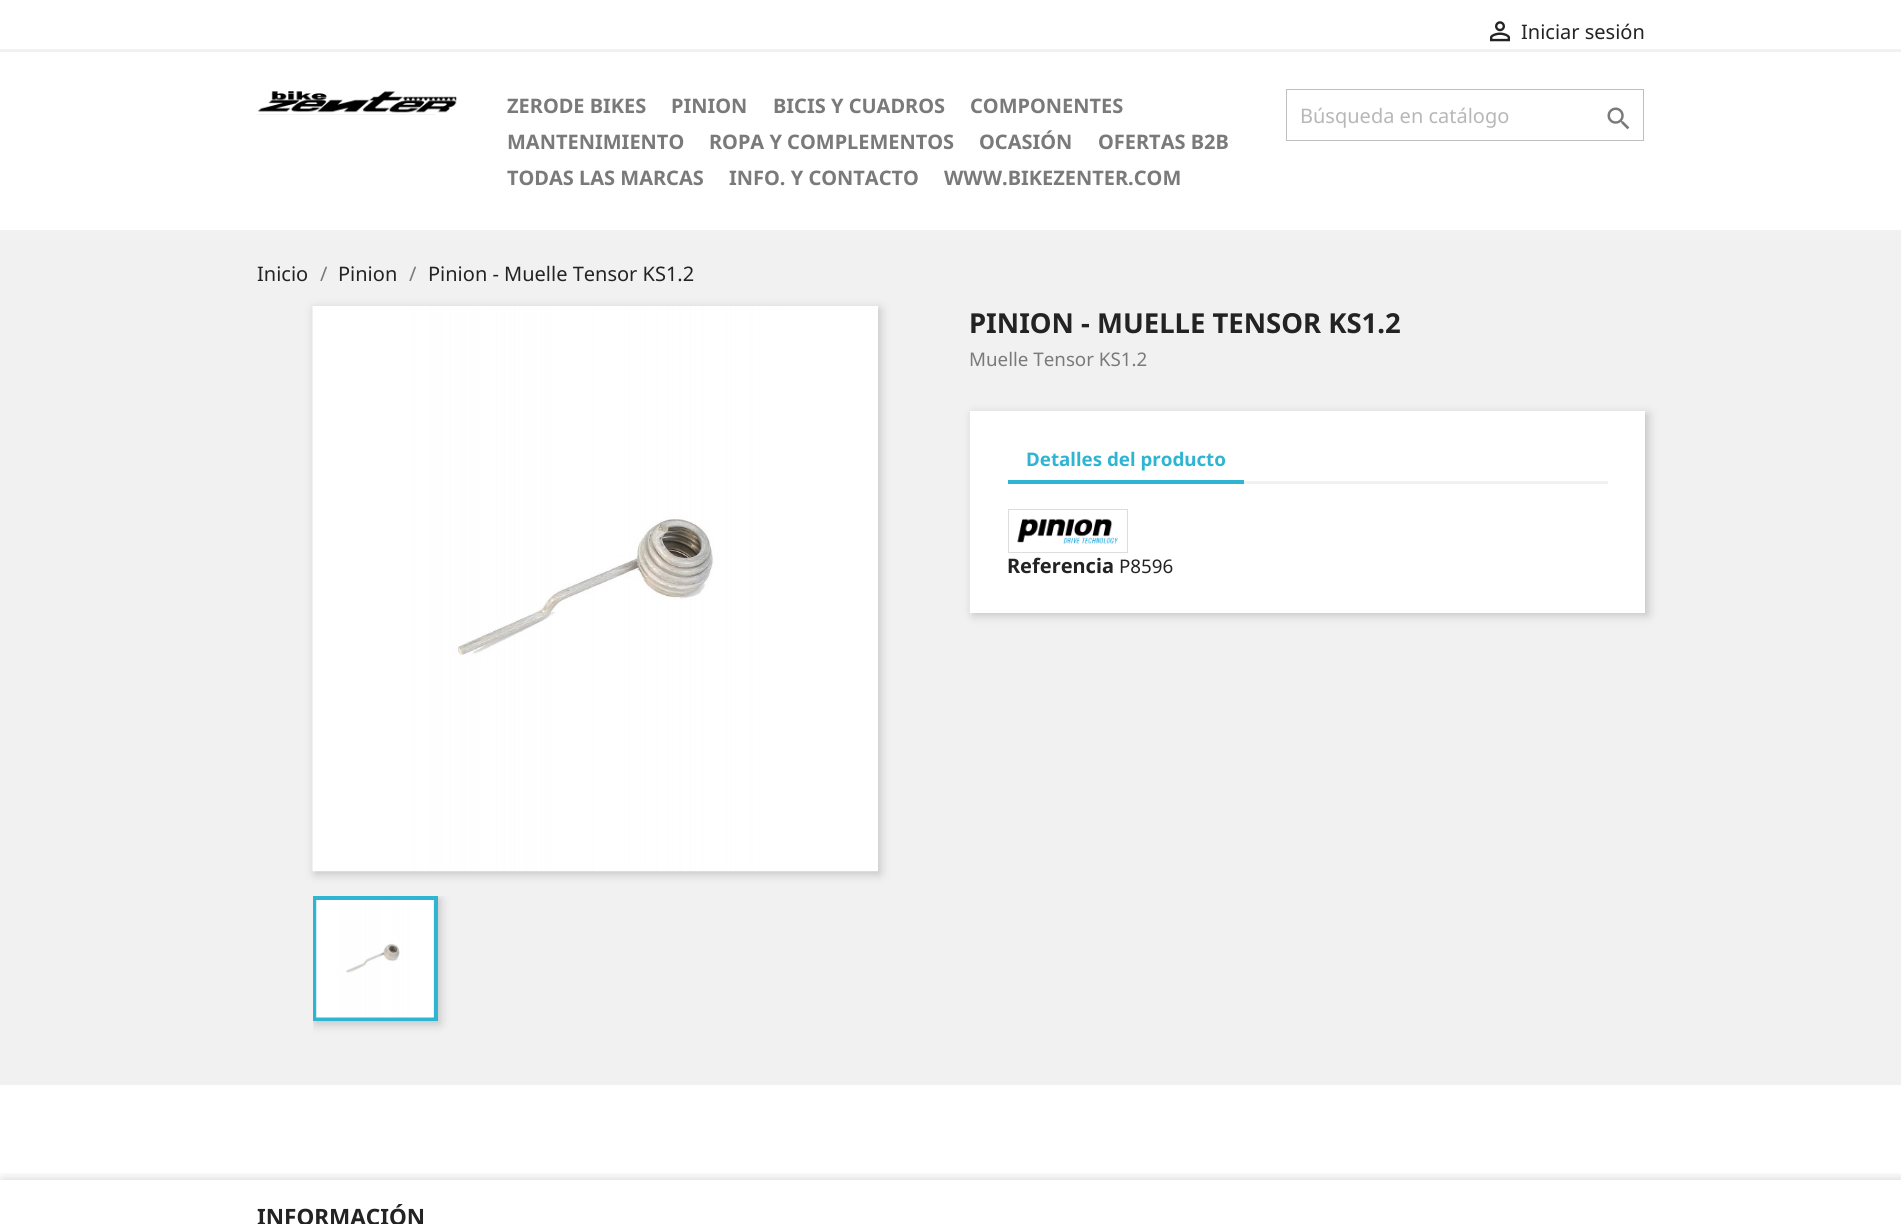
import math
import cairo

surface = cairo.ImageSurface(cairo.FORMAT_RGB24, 1901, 1224)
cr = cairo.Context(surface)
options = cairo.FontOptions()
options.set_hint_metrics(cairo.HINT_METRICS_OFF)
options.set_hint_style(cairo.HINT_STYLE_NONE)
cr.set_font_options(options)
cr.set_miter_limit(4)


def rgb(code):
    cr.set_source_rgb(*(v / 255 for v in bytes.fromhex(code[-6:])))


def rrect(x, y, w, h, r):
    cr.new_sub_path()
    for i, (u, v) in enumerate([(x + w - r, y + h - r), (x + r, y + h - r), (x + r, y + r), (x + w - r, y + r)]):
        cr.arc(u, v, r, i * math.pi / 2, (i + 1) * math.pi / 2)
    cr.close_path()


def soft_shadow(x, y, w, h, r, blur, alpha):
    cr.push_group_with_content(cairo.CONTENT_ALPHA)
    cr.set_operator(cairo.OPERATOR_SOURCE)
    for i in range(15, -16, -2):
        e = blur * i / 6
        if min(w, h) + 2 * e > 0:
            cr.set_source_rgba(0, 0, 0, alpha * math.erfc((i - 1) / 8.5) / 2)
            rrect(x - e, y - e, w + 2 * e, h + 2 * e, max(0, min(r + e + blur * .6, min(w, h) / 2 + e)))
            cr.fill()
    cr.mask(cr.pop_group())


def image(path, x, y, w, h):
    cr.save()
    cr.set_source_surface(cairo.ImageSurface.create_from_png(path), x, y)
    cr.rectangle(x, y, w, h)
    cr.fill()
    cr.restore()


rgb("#ffffff")
cr.paint()
rgb("#f1f1f1")
cr.rectangle(0, 49, 1901, 3)
cr.fill()
image("img/1.png", 1490, 21, 20, 21)
image("img/2.png", 257, 91, 200, 24)
cr.rectangle(1286.5, 89.5, 357, 51)
rgb("#bfbfbf")
cr.set_line_width(1)
cr.stroke()
image("img/3.png", 1607, 107, 23, 23)
rgb("#f1f1f1")
cr.rectangle(0, 230, 1901, 855)
cr.fill()
rgb("#000000")
soft_shadow(315, 309, 565, 565, 0, 5, 0.2)
rgb("#ffffff")
cr.rectangle(313, 306, 565, 565)
cr.fill()
image("img/4.png", 312, 306, 566, 566)
cr.save()
cr.rectangle(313, 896, 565, 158)
cr.clip()
rgb("#000000")
soft_shadow(315, 899, 125, 125, 0, 5, 0.2)
cr.restore()
cr.rectangle(315, 898, 121, 121)
rgb("#2fb5d2")
cr.set_line_width(4)
cr.stroke()
image("img/5.png", 316, 900, 118, 118)
rgb("#000000")
soft_shadow(973, 414, 675, 201, 0, 5, 0.2)
for x, y, w, h, color in [
    (970, 411, 675, 202, "#ffffff"),
    (1244, 481, 364, 3, "#f1f1f1"),
    (1008, 480, 236, 4, "#2fb5d2"),
]:
    rgb(color)
    cr.rectangle(x, y, w, h)
    cr.fill()
cr.rectangle(1008.5, 509.5, 119, 43)
rgb("#dddddd")
cr.set_line_width(1)
cr.stroke()
image("img/6.png", 1017, 518, 101, 26)
cr.save()
cr.rectangle(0, 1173, 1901, 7)
cr.clip()
rgb("#000000")
soft_shadow(3, 1183, 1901, 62, 0, 7, 0.3)
cr.restore()
cr.select_font_face("Noto Sans")
cr.set_font_size(20)
rgb("#232323")
cr.move_to(1521, 39)
cr.show_text("Iniciar sesión")
cr.select_font_face("Noto Sans", cairo.FONT_SLANT_NORMAL, cairo.FONT_WEIGHT_BOLD)
rgb("#7a7a7a")
for x, y, s in [
    (507, 113, "ZERODE BIKES"),
    (671, 113, "PINION"),
    (773, 113, "BICIS Y CUADROS"),
    (970, 113, "COMPONENTES"),
    (507, 149, "MANTENIMIENTO"),
    (709, 149, "ROPA Y COMPLEMENTOS"),
    (979, 149, "OCASIÓN"),
    (1098, 149, "OFERTAS B2B"),
    (507, 185, "TODAS LAS MARCAS"),
    (729, 185, "INFO. Y CONTACTO"),
    (944, 185, "WWW.BIKEZENTER.COM"),
]:
    cr.move_to(x, y)
    cr.show_text(s)
cr.select_font_face("Noto Sans")
rgb("#b7b7b7")
cr.move_to(1300, 123)
cr.show_text("Búsqueda en catálogo")
rgb("#232323")
cr.move_to(257, 281)
cr.show_text("Inicio")
rgb("#7a7a7a")
cr.move_to(320, 281)
cr.show_text("/")
rgb("#232323")
cr.move_to(338, 281)
cr.show_text("Pinion")
rgb("#7a7a7a")
cr.move_to(409, 281)
cr.show_text("/")
rgb("#232323")
cr.move_to(428, 281)
cr.show_text("Pinion - Muelle Tensor KS1.2")
cr.select_font_face("Noto Sans", cairo.FONT_SLANT_NORMAL, cairo.FONT_WEIGHT_BOLD)
cr.set_font_size(27.5)
cr.move_to(969, 333)
cr.show_text("PINION - MUELLE TENSOR KS1.2")
cr.select_font_face("Noto Sans")
cr.set_font_size(18.75)
rgb("#7a7a7a")
cr.move_to(969, 366)
cr.show_text("Muelle Tensor KS1.2")
cr.select_font_face("Noto Sans", cairo.FONT_SLANT_NORMAL, cairo.FONT_WEIGHT_BOLD)
rgb("#2fb5d2")
cr.move_to(1026, 466)
cr.show_text("Detalles del producto")
cr.set_font_size(20)
rgb("#232323")
cr.move_to(1007, 573)
cr.show_text("Referencia")
cr.select_font_face("Noto Sans")
cr.set_font_size(18.75)
cr.move_to(1119, 573)
cr.show_text("P8596")
cr.select_font_face("Noto Sans", cairo.FONT_SLANT_NORMAL, cairo.FONT_WEIGHT_BOLD)
cr.set_font_size(22.5)
cr.move_to(257, 1225)
cr.show_text("INFORMACIÓN")
surface.write_to_png("page.png")
